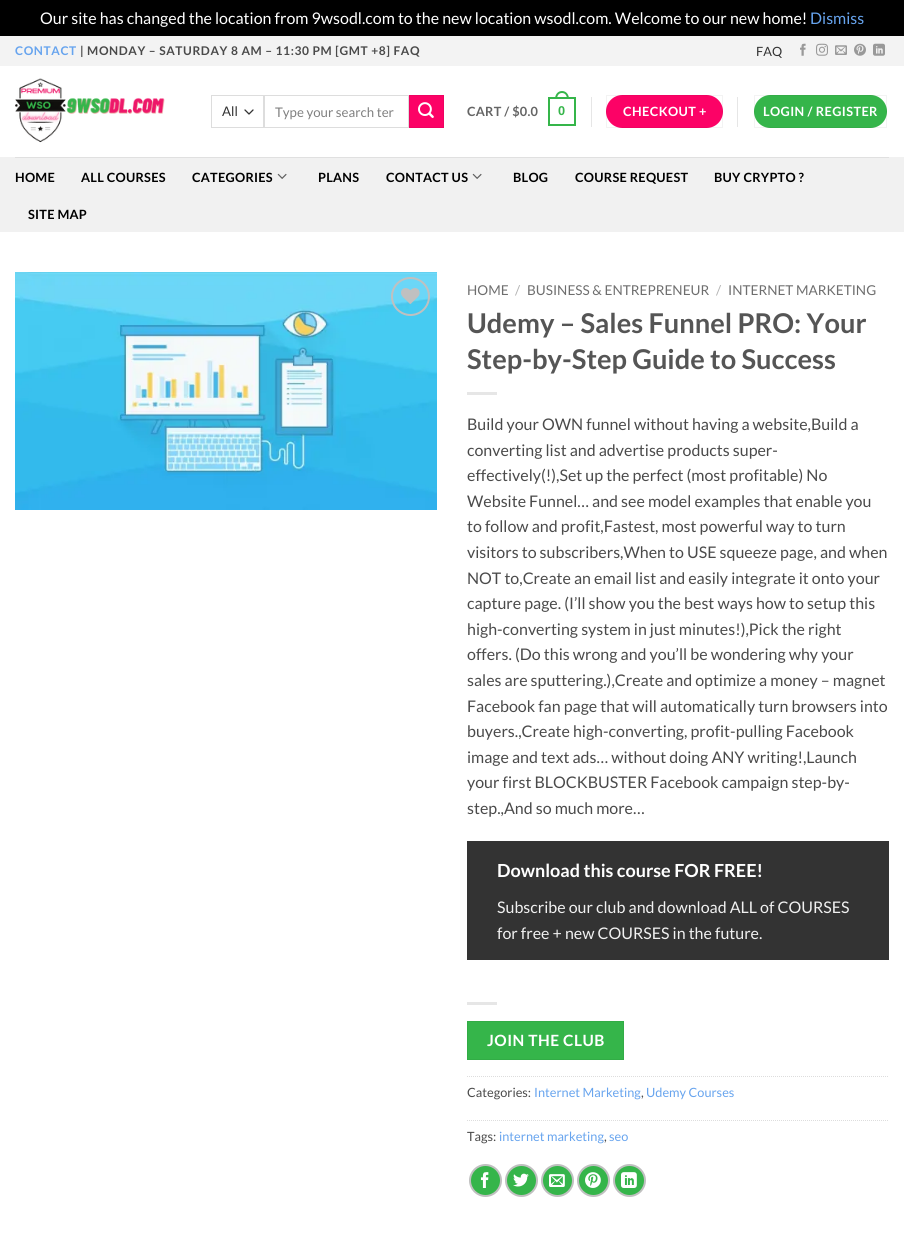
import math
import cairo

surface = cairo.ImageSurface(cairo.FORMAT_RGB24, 904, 1242)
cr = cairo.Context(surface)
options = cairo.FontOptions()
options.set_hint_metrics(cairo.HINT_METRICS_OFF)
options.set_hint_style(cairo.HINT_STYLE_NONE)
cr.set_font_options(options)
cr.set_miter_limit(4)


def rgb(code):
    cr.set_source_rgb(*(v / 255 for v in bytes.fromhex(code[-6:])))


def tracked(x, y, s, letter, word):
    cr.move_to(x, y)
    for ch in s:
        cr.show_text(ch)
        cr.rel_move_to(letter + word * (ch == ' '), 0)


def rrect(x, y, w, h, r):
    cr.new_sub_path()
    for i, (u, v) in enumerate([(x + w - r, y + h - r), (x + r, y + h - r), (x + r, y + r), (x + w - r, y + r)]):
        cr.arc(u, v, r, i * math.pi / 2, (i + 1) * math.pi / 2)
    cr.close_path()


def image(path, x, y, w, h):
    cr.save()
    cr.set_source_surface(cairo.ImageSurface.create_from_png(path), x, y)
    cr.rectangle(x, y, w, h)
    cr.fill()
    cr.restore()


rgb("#000000")
cr.paint()
rgb("#ffffff")
cr.rectangle(0, 66, 904, 1176)
cr.fill()
rgb("#f3f3f3")
cr.rectangle(0, 36, 904, 30)
cr.fill()
image("img/1.png", 800, 43, 6, 13)
image("img/2.png", 816, 43, 12, 13)
image("img/3.png", 835, 45, 12, 10)
image("img/4.png", 854, 43, 12, 13)
image("img/5.png", 873, 43, 12, 13)
image("img/6.png", 15, 78, 150, 65)
cr.new_path()
cr.move_to(245, 110)
cr.line_to(249, 114)
cr.line_to(253, 110)
rgb("#333333")
cr.set_line_width(1.3)
cr.set_line_cap(cairo.LINE_CAP_ROUND)
cr.set_line_join(cairo.LINE_JOIN_ROUND)
cr.stroke()
cr.rectangle(211.5, 95.5, 52, 32)
rgb("#dddddd")
cr.set_line_width(1)
cr.set_line_cap(cairo.LINE_CAP_BUTT)
cr.set_line_join(cairo.LINE_JOIN_MITER)
cr.stroke()
cr.rectangle(264.5, 95.5, 144, 32)
cr.stroke()
rgb("#fc0266")
cr.rectangle(409.5, 95.5, 34, 32)
cr.fill_preserve()
rgb("#ef0261")
cr.stroke()
image("img/7.png", 418, 102, 16, 16)
cr.rectangle(549, 98, 26, 27)
rgb("#35b54a")
cr.set_line_width(2)
cr.stroke()
cr.set_fill_rule(cairo.FILL_RULE_EVEN_ODD)
cr.new_path()
cr.move_to(562, 91)
cr.curve_to(566.5, 91, 569, 95, 569, 99)
cr.line_to(555, 99)
cr.curve_to(555, 95, 557.5, 91, 562, 91)
cr.close_path()
cr.move_to(562, 93)
cr.curve_to(565.5, 93, 567, 96, 567, 99)
cr.line_to(557, 99)
cr.curve_to(557, 96, 558.5, 93, 562, 93)
cr.close_path()
cr.fill()
rgb("#e6e6e6")
cr.rectangle(591, 97, 1, 30)
cr.fill()
rgb("#fc0266")
rrect(606, 95, 117, 33, 16.5)
cr.fill()
cr.rectangle(606.5, 95.5, 116, 32)
cr.set_source_rgba(0, 0, 0, 0.05)
cr.set_line_width(1)
cr.stroke()
rgb("#e6e6e6")
cr.rectangle(737, 97, 1, 30)
cr.fill()
rgb("#35b54a")
rrect(754, 95, 133, 33, 16.5)
cr.fill()
cr.rectangle(754.5, 95.5, 132, 32)
cr.set_source_rgba(0, 0, 0, 0.05)
cr.stroke()
rgb("#f1f1f1")
cr.rectangle(0, 157, 904, 75)
cr.fill()
rgb("#e0e0e0")
cr.rectangle(15, 157, 874, 1)
cr.fill()
image("img/8.png", 277, 173, 10, 6)
image("img/8.png", 472, 173, 10, 6)
image("img/9.png", 15, 272, 422, 238)
cr.arc(410.5, 296.5, 18.5, 0, 2 * math.pi)
rgb("#c0c0c0")
cr.set_line_width(2)
cr.stroke()
image("img/10.png", 401, 288, 19, 16)
for x, y, w, h, color in [
    (467, 392, 30, 3, "#e6e6e6"),
    (467, 841, 422, 119, "#333333"),
    (467, 1002, 30, 3, "#e6e6e6"),
]:
    rgb(color)
    cr.rectangle(x, y, w, h)
    cr.fill()
rgb("#35b54a")
cr.rectangle(467.5, 1021.5, 156, 38)
cr.fill_preserve()
rgb("#32ac46")
cr.set_line_width(1)
cr.stroke()
cr.new_path()
cr.move_to(467, 1076.5)
cr.line_to(889, 1076.5)
rgb("#dddddd")
cr.set_dash([1, 1])
cr.stroke()
cr.new_path()
cr.move_to(467, 1120.5)
cr.line_to(889, 1120.5)
cr.stroke()
rgb("#35b54a")
cr.arc(485.5, 1180.5, 15.5, 0, 2 * math.pi)
cr.fill_preserve()
rgb("#c0c0c0")
cr.set_line_width(2)
cr.set_dash([])
cr.stroke()
image("img/11.png", 480, 1172, 9, 16)
rgb("#35b54a")
cr.arc(521.5, 1180.5, 15.5, 0, 2 * math.pi)
cr.fill_preserve()
rgb("#c0c0c0")
cr.stroke()
image("img/12.png", 513, 1173, 16, 14)
rgb("#35b54a")
cr.arc(557.5, 1180.5, 15.5, 0, 2 * math.pi)
cr.fill_preserve()
rgb("#c0c0c0")
cr.stroke()
image("img/13.png", 549, 1174, 16, 13)
rgb("#35b54a")
cr.arc(593.5, 1180.5, 15.5, 0, 2 * math.pi)
cr.fill_preserve()
rgb("#c0c0c0")
cr.stroke()
image("img/14.png", 585, 1172, 16, 16)
rgb("#35b54a")
cr.arc(629.5, 1180.5, 15.5, 0, 2 * math.pi)
cr.fill_preserve()
rgb("#c0c0c0")
cr.stroke()
image("img/15.png", 621, 1172, 16, 16)
cr.select_font_face("Lato")
cr.set_font_size(16)
rgb("#ffffff")
cr.move_to(40, 24)
cr.show_text("Our site has changed the location from 9wsodl.com to the new location wsodl.com. Welcome to our new home!")
rgb("#67a4ee")
cr.move_to(810, 24)
cr.show_text("Dismiss")
cr.select_font_face("Lato", cairo.FONT_SLANT_NORMAL, cairo.FONT_WEIGHT_BOLD)
cr.set_font_size(12)
tracked(15, 55, "CONTACT", 0.6, 0)
rgb("#4a4a4a")
tracked(80, 55, "| MONDAY – SATURDAY 8 AM – 11:30 PM [GMT +8] FAQ", 0.6, 0)
cr.select_font_face("Lato")
cr.set_font_size(12.75)
rgb("#333333")
cr.move_to(756, 56)
cr.show_text("FAQ")
cr.set_font_size(13.25)
cr.move_to(222, 116)
cr.show_text("All")
rgb("#808080")
cr.move_to(275, 117)
cr.show_text("Type your search ter")
cr.select_font_face("Lato", cairo.FONT_SLANT_NORMAL, cairo.FONT_WEIGHT_BOLD)
cr.set_font_size(12.75)
rgb("#656565")
tracked(467, 116, "CART / $0.0", 0.25, 0)
cr.select_font_face("Liberation Sans", cairo.FONT_SLANT_NORMAL, cairo.FONT_WEIGHT_BOLD)
rgb("#35b54a")
tracked(558, 115, "0", 0.25, 0)
cr.select_font_face("Lato", cairo.FONT_SLANT_NORMAL, cairo.FONT_WEIGHT_BOLD)
rgb("#ffffff")
tracked(623, 116, "CHECKOUT +", 0.4, 0)
tracked(763, 116, "LOGIN / REGISTER", 0.4, 0)
rgb("#000000")
for x, y, s in [
    (15, 182, "HOME"),
    (81, 182, "ALL COURSES"),
    (192, 182, "CATEGORIES"),
    (318, 182, "PLANS"),
    (386, 182, "CONTACT US"),
    (513, 182, "BLOG"),
    (575, 182, "COURSE REQUEST"),
    (714, 182, "BUY CRYPTO ?"),
    (28, 219, "SITE MAP"),
]:
    tracked(x, y, s, 0.25, 0)
cr.select_font_face("Lato")
cr.set_font_size(13.6)
rgb("#6e6e6e")
cr.move_to(467, 295)
cr.show_text("HOME")
rgb("#b2b2b2")
cr.move_to(515, 295)
cr.show_text("/")
rgb("#6e6e6e")
cr.move_to(527, 295)
cr.show_text("BUSINESS & ENTREPRENEUR")
rgb("#b2b2b2")
cr.move_to(716, 295)
cr.show_text("/")
rgb("#6e6e6e")
cr.move_to(728, 295)
cr.show_text("INTERNET MARKETING")
cr.select_font_face("Lato", cairo.FONT_SLANT_NORMAL, cairo.FONT_WEIGHT_BOLD)
cr.set_font_size(27.25)
rgb("#555555")
cr.move_to(467, 333)
cr.show_text("Udemy – Sales Funnel PRO: Your")
cr.move_to(467, 369)
cr.show_text("Step-by-Step Guide to Success")
cr.select_font_face("Lato")
cr.set_font_size(16)
rgb("#4a4a4a")
for x, y, s in [
    (467, 430, "Build your OWN funnel without having a website,Build a"),
    (467, 456, "converting list and advertise products super-"),
    (467, 481, "effectively(!),Set up the perfect (most profitable) No"),
    (467, 507, "Website Funnel… and see model examples that enable you"),
    (467, 532, "to follow and profit,Fastest, most powerful way to turn"),
    (467, 558, "visitors to subscribers,When to USE squeeze page, and when"),
    (467, 584, "NOT to,Create an email list and easily integrate it onto your"),
    (467, 609, "capture page. (I’ll show you the best ways how to setup this"),
    (467, 635, "high-converting system in just minutes!),Pick the right"),
    (467, 660, "offers. (Do this wrong and you’ll be wondering why your"),
    (467, 686, "sales are sputtering.),Create and optimize a money – magnet"),
    (467, 712, "Facebook fan page that will automatically turn browsers into"),
    (467, 737, "buyers.,Create high-converting, profit-pulling Facebook"),
    (467, 763, "image and text ads… without doing ANY writing!,Launch"),
    (467, 788, "your first BLOCKBUSTER Facebook campaign step-by-"),
    (467, 814, "step.,And so much more…"),
]:
    cr.move_to(x, y)
    cr.show_text(s)
cr.select_font_face("Lato", cairo.FONT_SLANT_NORMAL, cairo.FONT_WEIGHT_BOLD)
cr.set_font_size(18)
rgb("#ffffff")
cr.move_to(497, 877)
cr.show_text("Download this course FOR FREE!")
cr.select_font_face("Lato")
cr.set_font_size(16)
rgb("#f1f1f1")
cr.move_to(497, 913)
cr.show_text("Subscribe our club and download ALL of COURSES")
cr.move_to(497, 939)
cr.show_text("for free + new COURSES in the future.")
cr.select_font_face("Lato", cairo.FONT_SLANT_NORMAL, cairo.FONT_WEIGHT_BOLD)
cr.set_font_size(15.5)
rgb("#ffffff")
tracked(487, 1046, "JOIN THE CLUB", 0.5, 0)
cr.select_font_face("Lato")
cr.set_font_size(12.75)
rgb("#4a4a4a")
cr.move_to(467, 1097)
cr.show_text("Categories:")
rgb("#67a4ee")
cr.move_to(534, 1097)
cr.show_text("Internet Marketing")
rgb("#4a4a4a")
cr.move_to(641, 1097)
cr.show_text(",")
rgb("#67a4ee")
cr.move_to(646, 1097)
cr.show_text("Udemy Courses")
rgb("#4a4a4a")
cr.move_to(467, 1141)
cr.show_text("Tags:")
rgb("#67a4ee")
cr.move_to(499, 1141)
cr.show_text("internet marketing")
rgb("#4a4a4a")
cr.move_to(604, 1141)
cr.show_text(",")
rgb("#67a4ee")
cr.move_to(609, 1141)
cr.show_text("seo")
surface.write_to_png("page.png")
